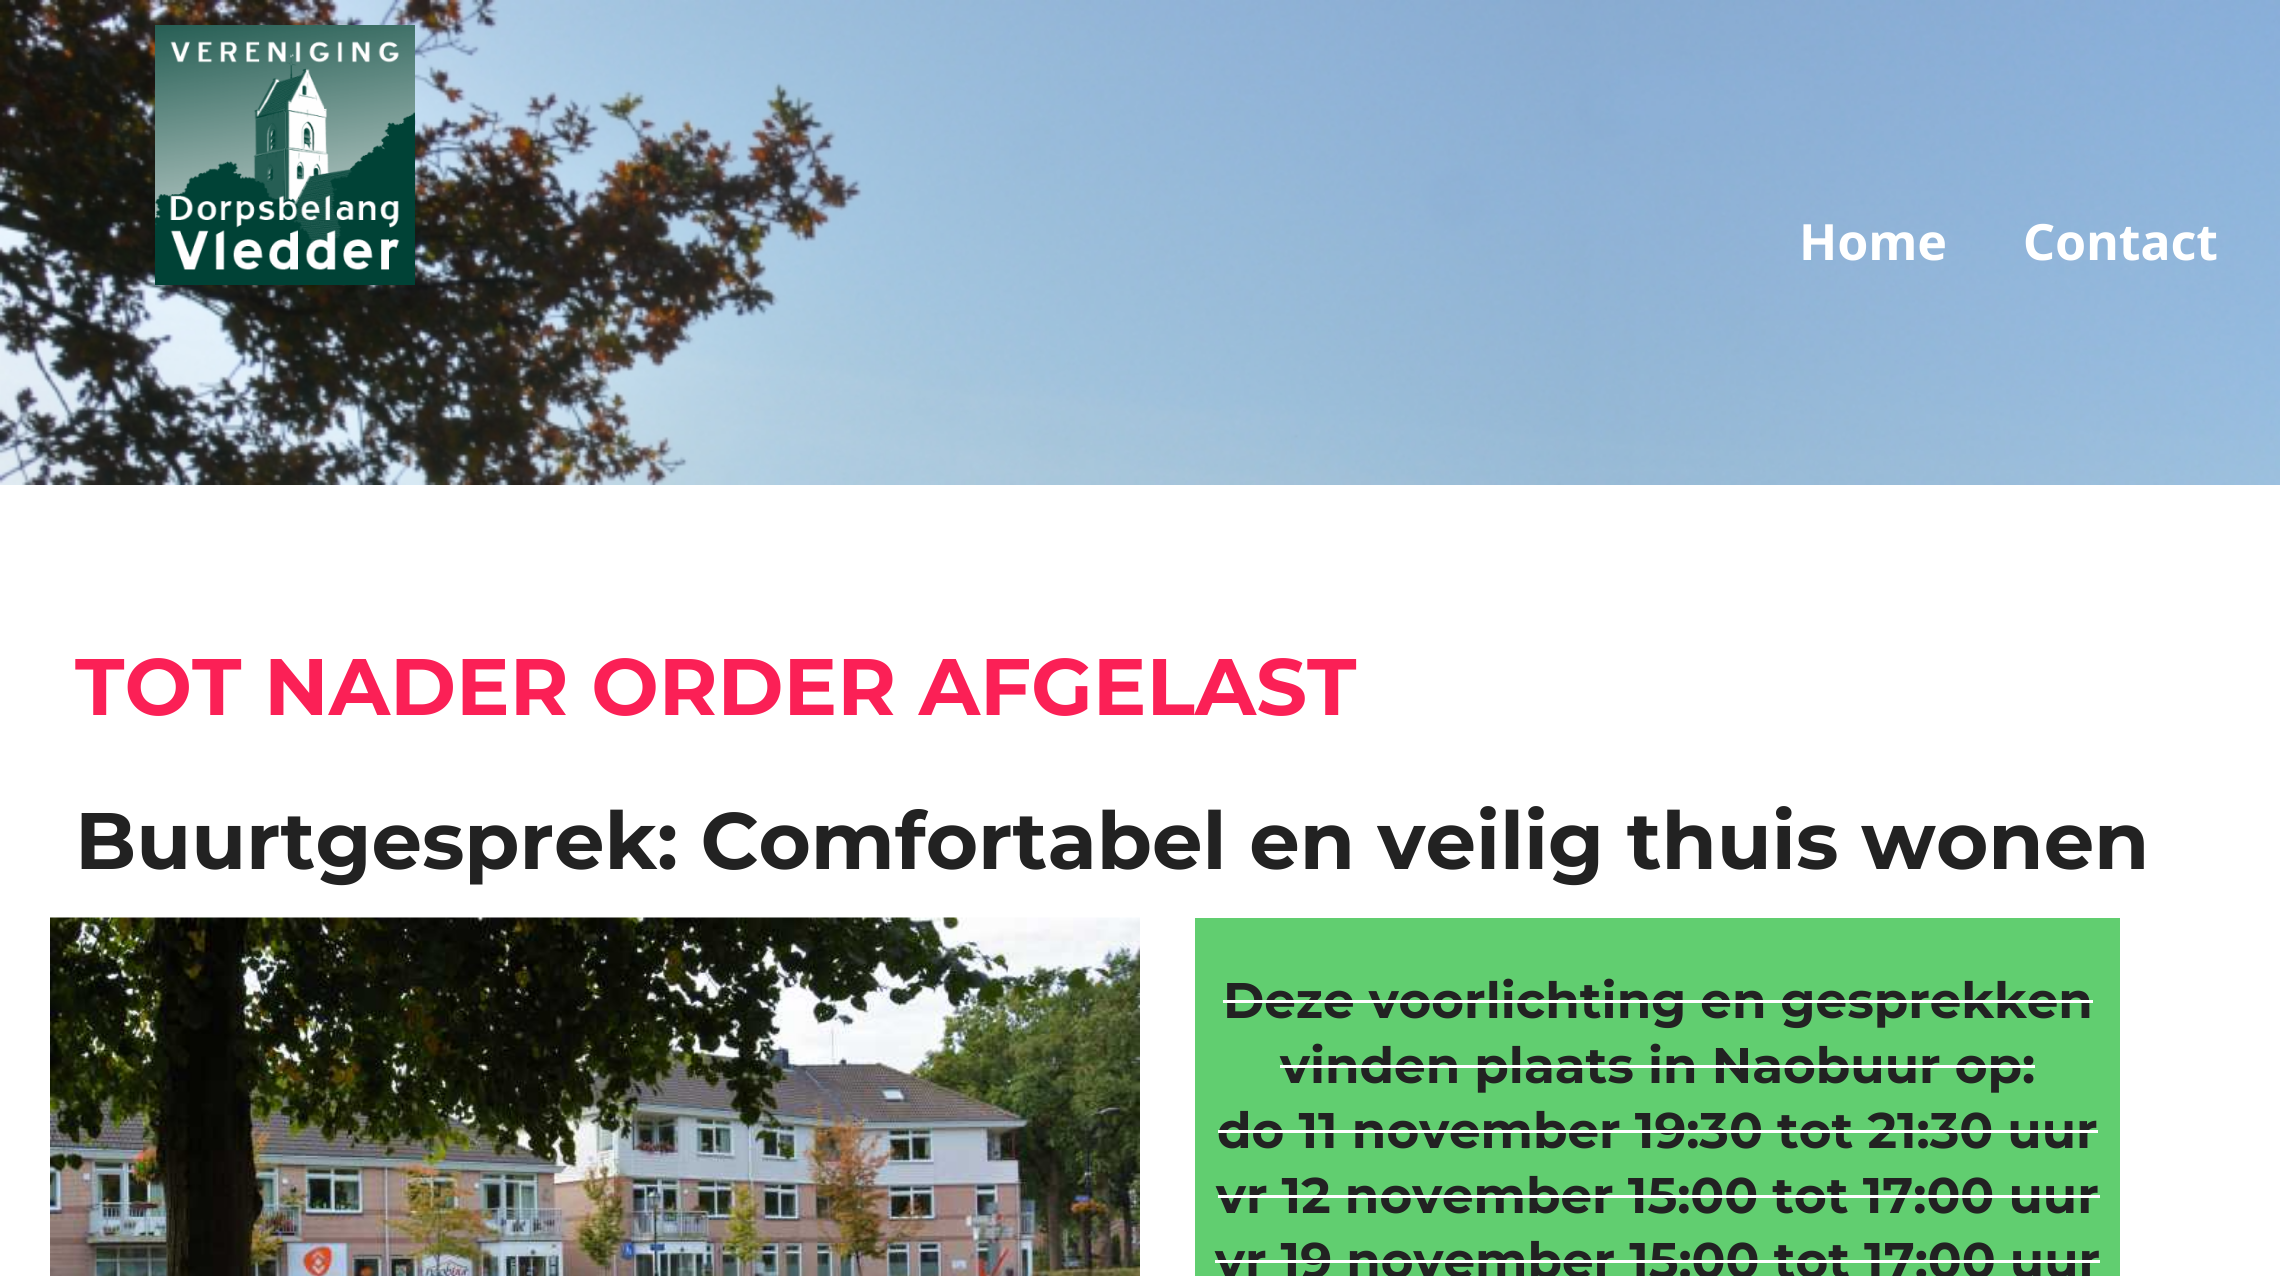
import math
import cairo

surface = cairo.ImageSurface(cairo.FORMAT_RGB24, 2280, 1276)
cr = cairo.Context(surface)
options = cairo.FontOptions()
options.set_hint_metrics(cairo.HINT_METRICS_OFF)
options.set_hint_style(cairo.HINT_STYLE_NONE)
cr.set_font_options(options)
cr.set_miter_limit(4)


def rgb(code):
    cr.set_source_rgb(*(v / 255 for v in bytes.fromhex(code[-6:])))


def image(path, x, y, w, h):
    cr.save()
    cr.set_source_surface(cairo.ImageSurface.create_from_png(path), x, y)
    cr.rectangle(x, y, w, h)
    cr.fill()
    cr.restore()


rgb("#ffffff")
cr.paint()
image("img/1.png", 0, 0, 2280, 485)
image("img/2.png", 155, 25, 260, 260)
image("img/3.png", 50, 917, 1090, 359)
rgb("#61ce70")
cr.rectangle(1195, 918, 925, 358)
cr.fill()
cr.select_font_face("Noto Sans", cairo.FONT_SLANT_NORMAL, cairo.FONT_WEIGHT_BOLD)
cr.set_font_size(50)
rgb("#ffffff")
cr.move_to(1799, 260)
cr.show_text("Home")
cr.move_to(2023, 260)
cr.show_text("Contact")
cr.select_font_face("Montserrat Thin")
cr.set_font_size(80)
rgb("#fb2056")
cr.move_to(75, 715)
cr.show_text("TOT NADER ORDER AFGELAST")
rgb("#222222")
cr.move_to(75, 869)
cr.show_text("Buurtgesprek: Comfortabel en veilig thuis wonen")
cr.set_font_size(50)
cr.move_to(1223, 1018)
cr.show_text("Deze voorlichting en gesprekken")
rgb("#ffffff")
cr.rectangle(1223, 1000, 870, 3)
cr.fill()
rgb("#222222")
cr.move_to(1280, 1083)
cr.show_text("vinden plaats in Naobuur op:")
rgb("#ffffff")
cr.rectangle(1280, 1065, 755, 3)
cr.fill()
rgb("#222222")
cr.move_to(1217, 1148)
cr.show_text("do 11 november 19:30 tot 21:30 uur")
rgb("#ffffff")
cr.rectangle(1218, 1130, 880, 3)
cr.fill()
rgb("#222222")
cr.move_to(1216, 1213)
cr.show_text("vr 12 november 15:00 tot 17:00 uur")
rgb("#ffffff")
cr.rectangle(1218, 1195, 882, 3)
cr.fill()
rgb("#222222")
cr.move_to(1215, 1278)
cr.show_text("vr 19 november 15:00 tot 17:00 uur")
rgb("#ffffff")
cr.rectangle(1215, 1260, 885, 3)
cr.fill()
surface.write_to_png("page.png")
